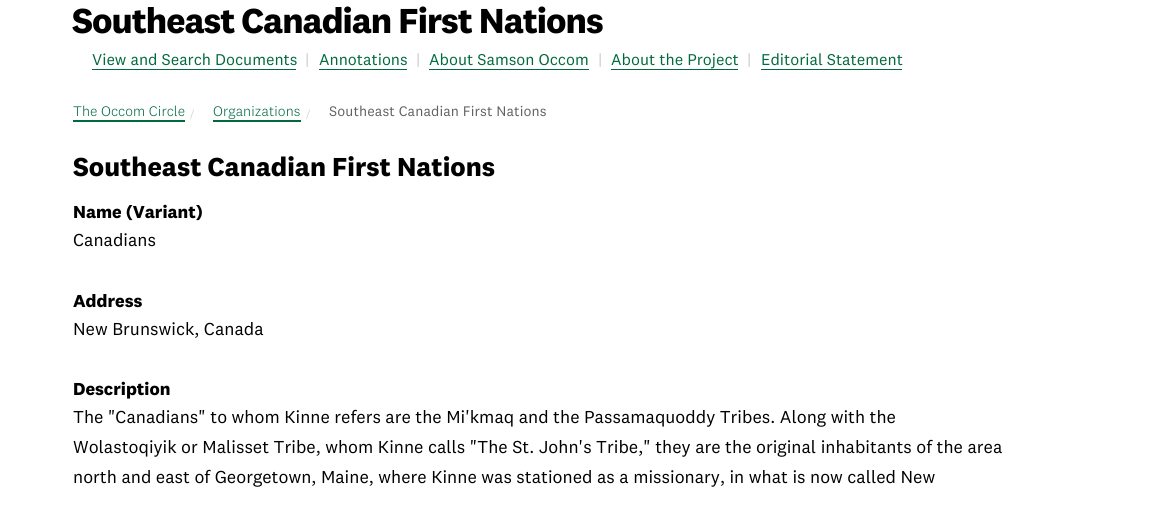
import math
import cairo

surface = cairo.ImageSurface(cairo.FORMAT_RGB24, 1156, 505)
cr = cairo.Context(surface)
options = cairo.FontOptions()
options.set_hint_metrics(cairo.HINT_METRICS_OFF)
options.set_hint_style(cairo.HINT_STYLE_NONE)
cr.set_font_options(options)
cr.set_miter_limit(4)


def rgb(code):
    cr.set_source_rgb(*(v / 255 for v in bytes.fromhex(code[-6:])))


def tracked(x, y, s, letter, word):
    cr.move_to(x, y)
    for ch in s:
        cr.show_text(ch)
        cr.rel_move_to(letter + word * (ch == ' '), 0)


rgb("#ffffff")
cr.paint()
for x, y, w, h, color in [
    (92, 69, 204, 1, "#00693e"),
    (319, 69, 88, 1, "#00693e"),
    (429, 69, 160, 1, "#00693e"),
    (611, 69, 127, 1, "#00693e"),
    (761, 69, 141, 1, "#00693e"),
    (73, 120, 112, 2, "#00693e"),
    (213, 120, 88, 2, "#00693e"),
]:
    rgb(color)
    cr.rectangle(x, y, w, h)
    cr.fill()
cr.select_font_face("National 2", cairo.FONT_SLANT_NORMAL, cairo.FONT_WEIGHT_BOLD)
cr.set_font_size(36)
rgb("#000000")
tracked(72, 33, "Southeast Canadian First Nations", -1, 0)
cr.select_font_face("National 2")
cr.set_font_size(16.25)
rgb("#00693e")
cr.move_to(92, 65)
cr.show_text("View and Search Documents")
rgb("#cccccc")
cr.move_to(305, 65)
cr.show_text("|")
rgb("#00693e")
cr.move_to(319, 65)
cr.show_text("Annotations")
rgb("#cccccc")
cr.move_to(416, 65)
cr.show_text("|")
rgb("#00693e")
cr.move_to(429, 65)
cr.show_text("About Samson Occom")
rgb("#cccccc")
cr.move_to(598, 65)
cr.show_text("|")
rgb("#00693e")
cr.move_to(611, 65)
cr.show_text("About the Project")
rgb("#cccccc")
cr.move_to(747, 65)
cr.show_text("|")
rgb("#00693e")
cr.move_to(761, 65)
cr.show_text("Editorial Statement")
cr.select_font_face("National 2 Light")
cr.set_font_size(14.4)
tracked(73, 116, "The Occom Circle", 0.1, 0)
cr.select_font_face("Liberation Serif")
rgb("#cccccc")
tracked(190, 119, "/", 0.1, 0)
cr.select_font_face("National 2 Light")
rgb("#00693e")
tracked(213, 116, "Organizations", 0.1, 0)
cr.select_font_face("Liberation Serif")
rgb("#cccccc")
tracked(306, 119, "/", 0.1, 0)
cr.select_font_face("National 2")
rgb("#616161")
tracked(329, 116, "Southeast Canadian First Nations", 0.1, 0)
cr.select_font_face("National 2", cairo.FONT_SLANT_NORMAL, cairo.FONT_WEIGHT_BOLD)
cr.set_font_size(27)
rgb("#000000")
cr.move_to(73, 176)
cr.show_text("Southeast Canadian First Nations")
cr.set_font_size(18)
cr.move_to(73, 218)
cr.show_text("Name (Variant)")
cr.select_font_face("National 2")
cr.move_to(73, 246)
cr.show_text("Canadians")
cr.select_font_face("National 2", cairo.FONT_SLANT_NORMAL, cairo.FONT_WEIGHT_BOLD)
cr.move_to(73, 307)
cr.show_text("Address")
cr.select_font_face("National 2")
cr.move_to(73, 335)
cr.show_text("New Brunswick, Canada")
cr.select_font_face("National 2", cairo.FONT_SLANT_NORMAL, cairo.FONT_WEIGHT_BOLD)
cr.move_to(73, 395)
cr.show_text("Description")
cr.select_font_face("National 2")
for x, y, s in [
    (73, 423, "The \"Canadians\" to whom Kinne refers are the Mi'kmaq and the Passamaquoddy Tribes. Along with the"),
    (73, 453, "Wolastoqiyik or Malisset Tribe, whom Kinne calls \"The St. John's Tribe,\" they are the original inhabitants of the area"),
    (73, 483, "north and east of Georgetown, Maine, where Kinne was stationed as a missionary, in what is now called New"),
]:
    cr.move_to(x, y)
    cr.show_text(s)
surface.write_to_png("page.png")
